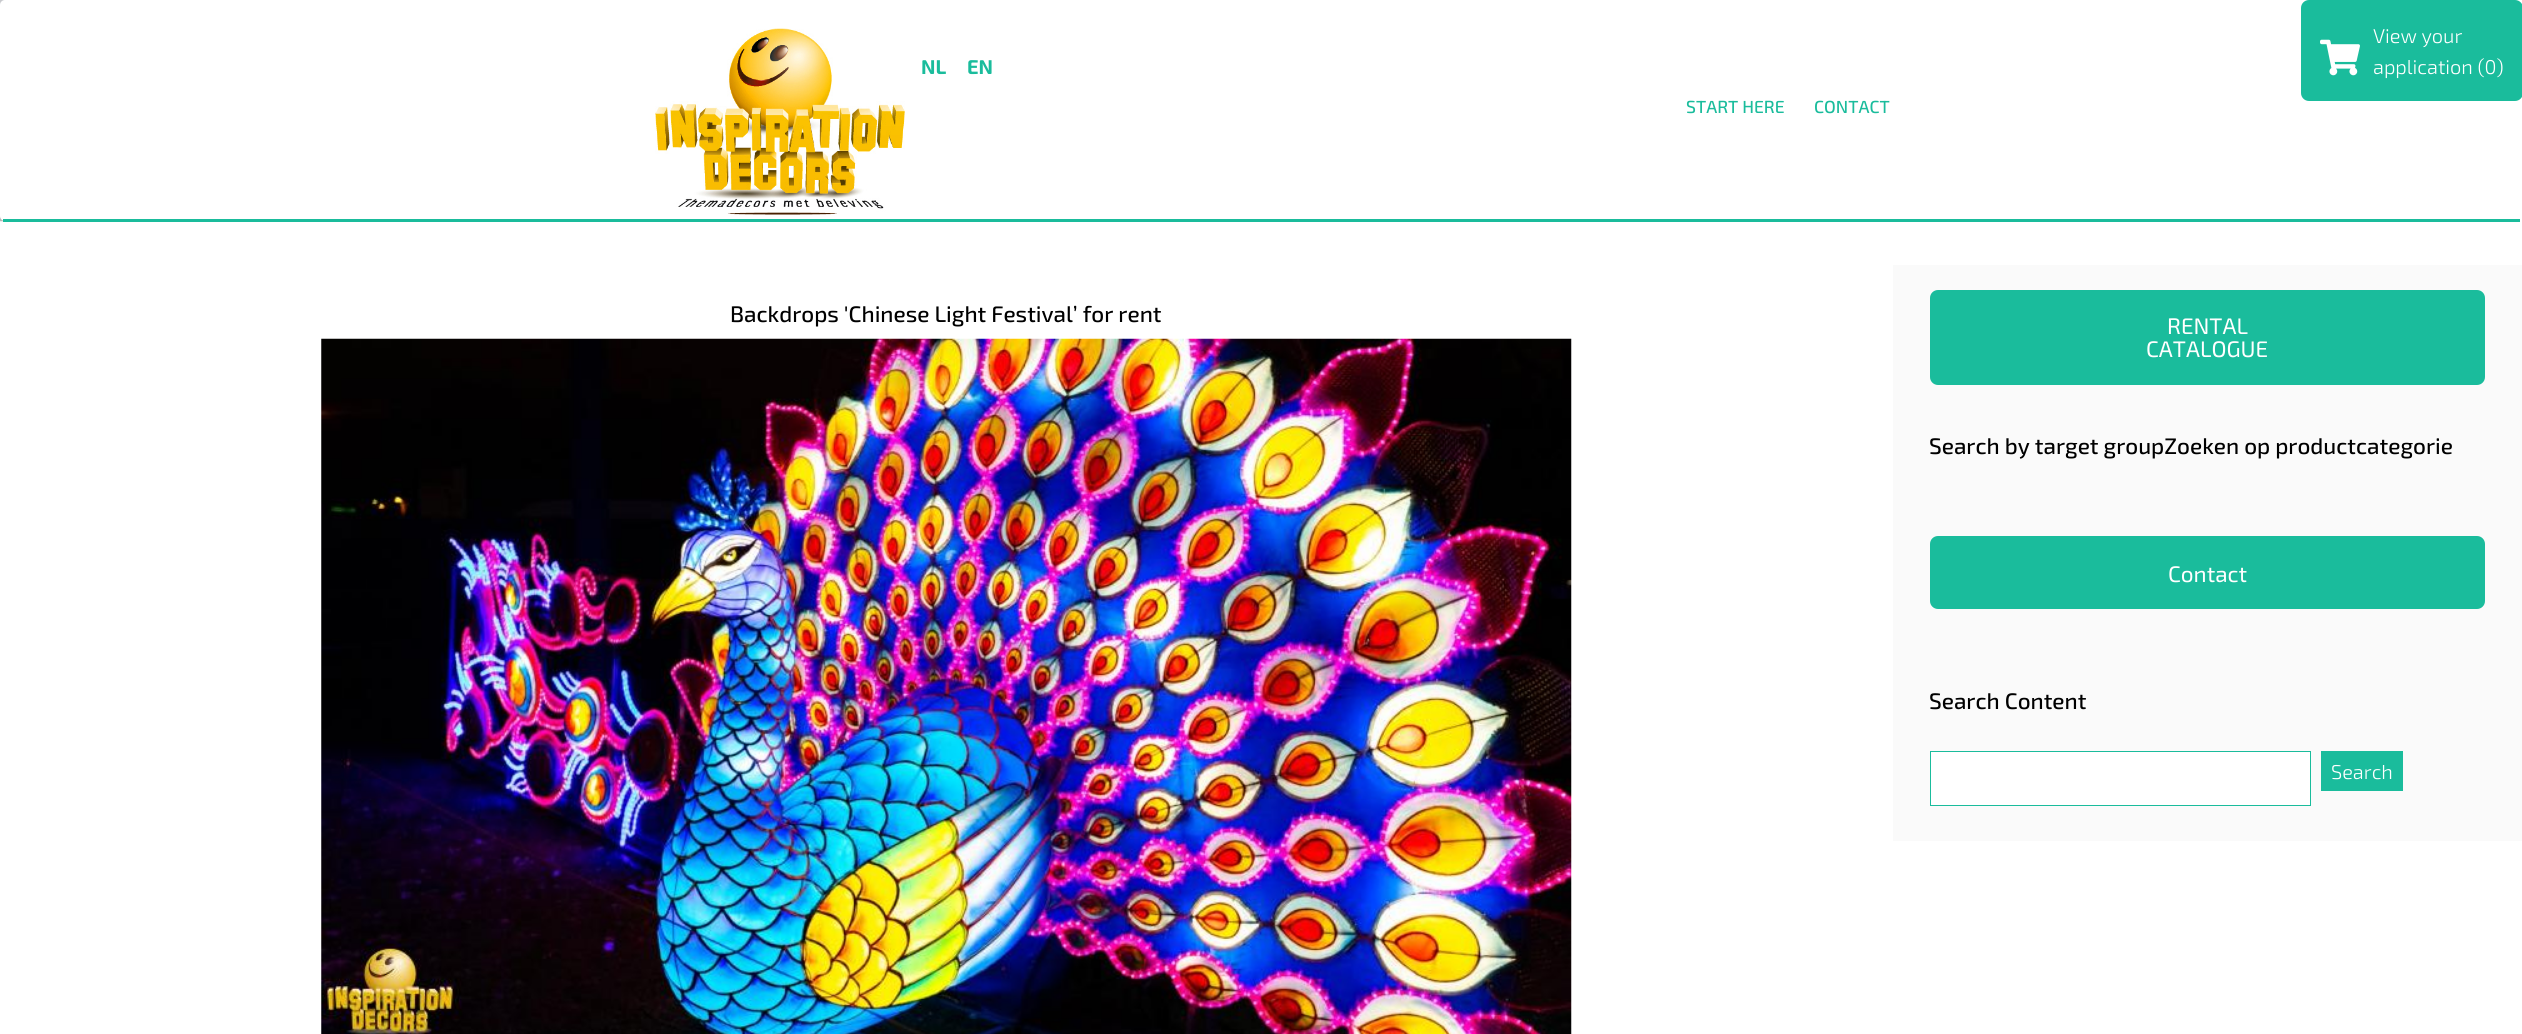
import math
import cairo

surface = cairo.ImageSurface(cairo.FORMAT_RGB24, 2522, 1034)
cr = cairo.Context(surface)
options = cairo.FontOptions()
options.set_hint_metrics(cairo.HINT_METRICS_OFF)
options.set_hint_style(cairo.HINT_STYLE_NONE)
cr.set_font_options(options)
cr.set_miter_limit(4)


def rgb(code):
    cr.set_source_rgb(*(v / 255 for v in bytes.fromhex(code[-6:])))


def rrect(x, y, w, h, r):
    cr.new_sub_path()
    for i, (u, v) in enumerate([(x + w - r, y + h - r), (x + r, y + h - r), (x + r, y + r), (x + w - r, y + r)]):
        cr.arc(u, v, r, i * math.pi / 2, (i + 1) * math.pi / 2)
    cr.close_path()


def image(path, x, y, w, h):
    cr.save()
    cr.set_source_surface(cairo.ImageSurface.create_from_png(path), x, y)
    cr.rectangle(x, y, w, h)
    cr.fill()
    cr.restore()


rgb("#ffffff")
cr.paint()
image("img/1.png", 0, 0, 5, 222)
rgb("#ffffff")
rrect(0, 0, 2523, 221, 5)
cr.fill()
rgb("#1abc9c")
cr.rectangle(3, 219, 2517, 3)
cr.fill()
image("img/2.png", 655, 28, 250, 187)
rrect(2301, 0, 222, 101, 8)
cr.fill()
image("img/3.png", 2320, 39, 40, 37)
image("img/4.png", 321, 338, 1251, 696)
rgb("#fafafa")
cr.rectangle(1893, 265, 629, 576)
cr.fill()
rgb("#1abc9c")
rrect(1930, 290, 555, 95, 8)
cr.fill()
rrect(1930, 536, 555, 73, 8)
cr.fill()
rgb("#ffffff")
cr.rectangle(1930.5, 751.5, 380, 54)
cr.fill_preserve()
rgb("#1abc9c")
cr.set_line_width(1)
cr.stroke()
cr.rectangle(2321, 751, 82, 40)
cr.fill()
cr.select_font_face("Exo 2", cairo.FONT_SLANT_NORMAL, cairo.FONT_WEIGHT_BOLD)
cr.set_font_size(20)
cr.move_to(921, 74)
cr.show_text("NL")
cr.move_to(967, 74)
cr.show_text("EN")
cr.select_font_face("Exo 2 Light")
rgb("#ffffff")
cr.move_to(2373, 43)
cr.show_text("View your")
cr.move_to(2373, 74)
cr.show_text("application (0)")
cr.select_font_face("Exo 2 Medium")
cr.set_font_size(17.5)
rgb("#1abc9c")
cr.move_to(1686, 113)
cr.show_text("START HERE")
cr.move_to(1814, 113)
cr.show_text("CONTACT")
cr.set_font_size(22.5)
rgb("#000000")
cr.move_to(730, 322)
cr.show_text("Backdrops 'Chinese Light Festival’ for rent")
cr.select_font_face("Exo 2")
rgb("#ffffff")
cr.move_to(2167, 334)
cr.show_text("RENTAL")
cr.move_to(2146, 357)
cr.show_text("CATALOGUE")
cr.select_font_face("Exo 2 Medium")
rgb("#000000")
cr.move_to(1929, 454)
cr.show_text("Search by target groupZoeken op productcategorie")
cr.select_font_face("Exo 2")
rgb("#ffffff")
cr.move_to(2168, 582)
cr.show_text("Contact")
cr.select_font_face("Exo 2 Medium")
rgb("#000000")
cr.move_to(1929, 709)
cr.show_text("Search Content")
cr.select_font_face("Exo 2 Light")
cr.set_font_size(20)
rgb("#ffffff")
cr.move_to(2331, 779)
cr.show_text("Search")
surface.write_to_png("page.png")
